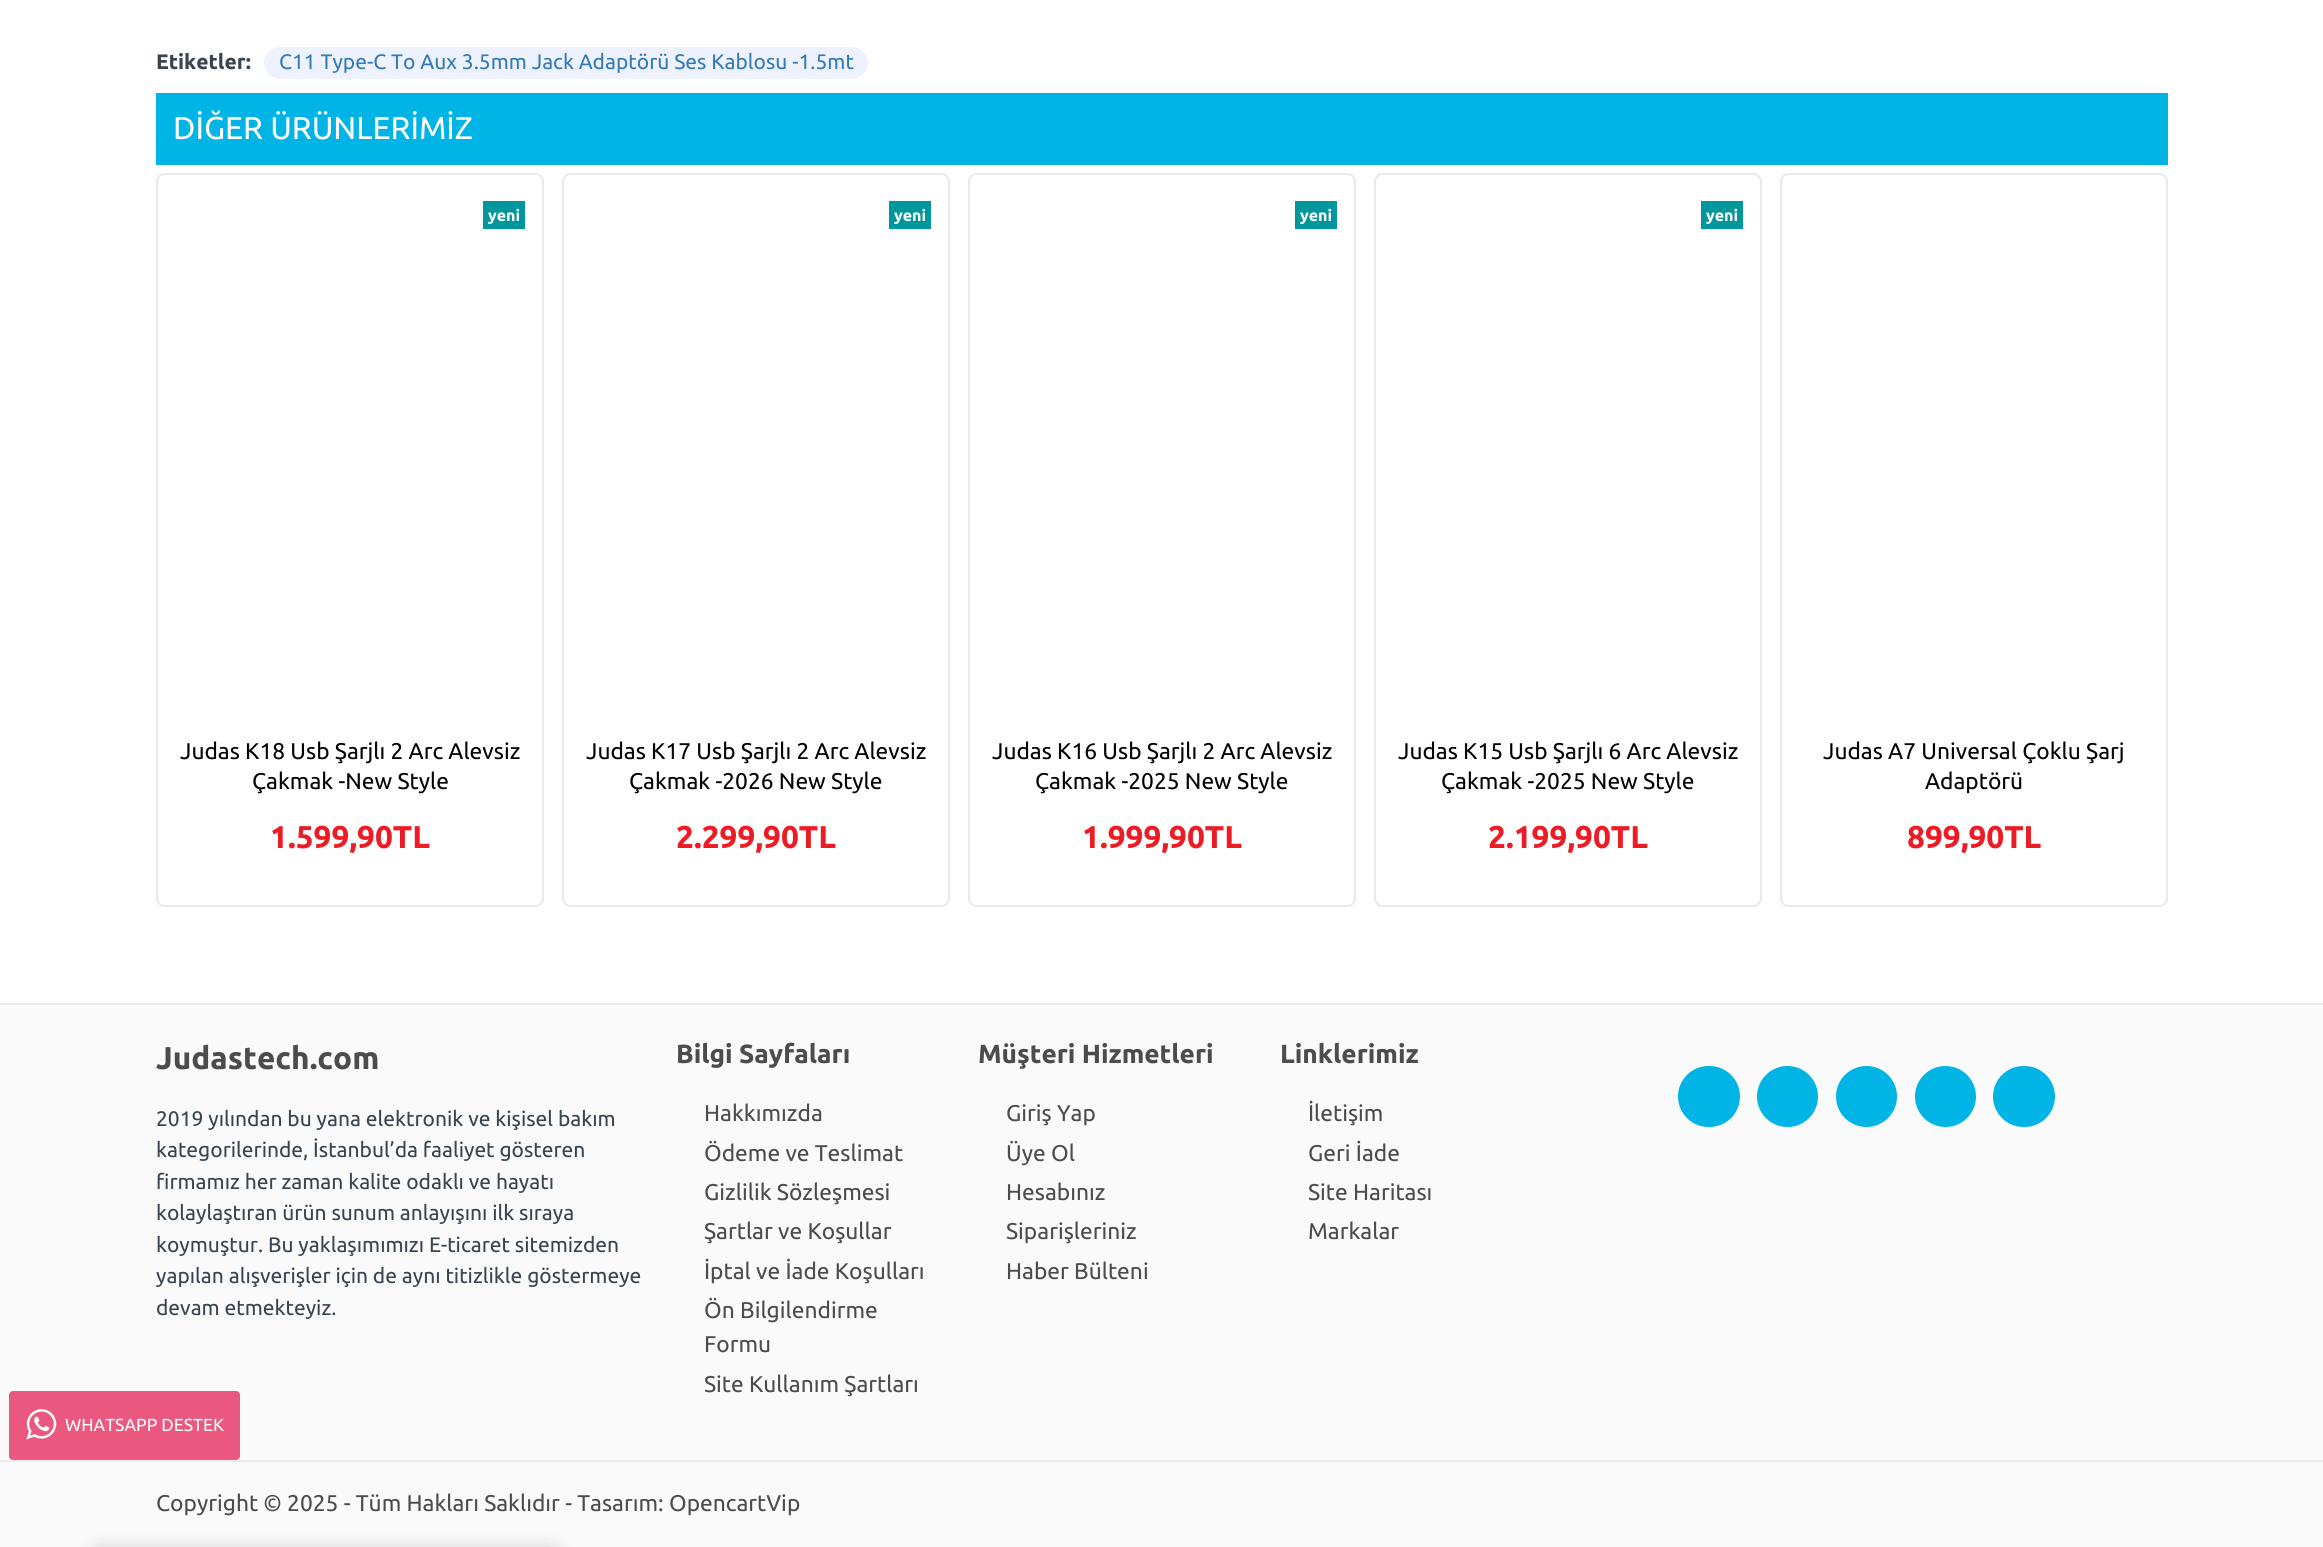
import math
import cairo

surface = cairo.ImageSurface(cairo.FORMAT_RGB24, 2323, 1547)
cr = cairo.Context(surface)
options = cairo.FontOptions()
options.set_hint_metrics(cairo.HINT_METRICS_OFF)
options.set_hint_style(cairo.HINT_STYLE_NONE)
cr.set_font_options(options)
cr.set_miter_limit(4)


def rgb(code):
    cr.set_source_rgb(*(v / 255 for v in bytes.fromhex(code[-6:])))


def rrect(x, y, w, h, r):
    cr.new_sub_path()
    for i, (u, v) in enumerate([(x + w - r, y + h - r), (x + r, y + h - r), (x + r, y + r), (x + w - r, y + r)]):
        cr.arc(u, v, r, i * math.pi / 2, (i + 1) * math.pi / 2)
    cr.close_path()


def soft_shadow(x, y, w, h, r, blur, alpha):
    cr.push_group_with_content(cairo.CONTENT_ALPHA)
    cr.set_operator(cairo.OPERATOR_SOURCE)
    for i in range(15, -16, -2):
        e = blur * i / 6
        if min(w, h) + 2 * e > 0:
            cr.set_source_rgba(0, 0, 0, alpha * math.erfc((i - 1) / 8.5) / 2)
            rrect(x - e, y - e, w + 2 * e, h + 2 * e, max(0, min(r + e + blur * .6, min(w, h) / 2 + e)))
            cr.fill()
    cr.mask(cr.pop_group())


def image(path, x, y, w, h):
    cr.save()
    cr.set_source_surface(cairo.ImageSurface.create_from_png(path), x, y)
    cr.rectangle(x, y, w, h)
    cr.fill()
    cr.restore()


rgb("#ffffff")
cr.paint()
rgb("#edf2fe")
rrect(264, 47, 604, 32, 16)
cr.fill()
rgb("#00b4e5")
cr.rectangle(156, 93, 2012, 72)
cr.fill()
rrect(157, 174, 386, 732, 8)
rgb("#eaeaea")
cr.stroke()
rgb("#00979c")
cr.rectangle(483, 201, 42, 28)
cr.fill()
rrect(563, 174, 386, 732, 8)
rgb("#eaeaea")
cr.stroke()
rgb("#00979c")
cr.rectangle(889, 201, 42, 28)
cr.fill()
rrect(969, 174, 386, 732, 8)
rgb("#eaeaea")
cr.stroke()
rgb("#00979c")
cr.rectangle(1295, 201, 42, 28)
cr.fill()
rrect(1375, 174, 386, 732, 8)
rgb("#eaeaea")
cr.stroke()
rgb("#00979c")
cr.rectangle(1701, 201, 42, 28)
cr.fill()
rrect(1781, 174, 386, 732, 8)
rgb("#eaeaea")
cr.stroke()
rgb("#fafafa")
cr.rectangle(0, 1005, 2323, 542)
cr.fill()
rgb("#eb587f")
rrect(9, 1391, 231, 69, 4)
cr.fill()
image("img/1.png", 26, 1409, 31, 31)
rgb("#eaeaea")
cr.rectangle(0, 1003, 2323, 2)
cr.fill()
rgb("#00b4e5")
rrect(1678, 1066, 62, 61, 30.5)
cr.fill()
cr.arc(1787.5, 1096.5, 30.5, 0, 2 * math.pi)
cr.fill()
cr.arc(1866.5, 1096.5, 30.5, 0, 2 * math.pi)
cr.fill()
cr.arc(1945.5, 1096.5, 30.5, 0, 2 * math.pi)
cr.fill()
rrect(1993, 1066, 62, 61, 30.5)
cr.fill()
rgb("#eaeaea")
cr.rectangle(0, 1460, 2323, 2)
cr.fill()
rgb("#000000")
soft_shadow(88, 1547, 476, 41, 14, 9, 0.15)
cr.select_font_face("Ubuntu", cairo.FONT_SLANT_NORMAL, cairo.FONT_WEIGHT_BOLD)
cr.set_font_size(21)
rgb("#38444f")
cr.move_to(156, 69)
cr.show_text("Etiketler:")
cr.select_font_face("Ubuntu")
rgb("#337ab7")
cr.move_to(279, 69)
cr.show_text("C11 Type-C To Aux 3.5mm Jack Adaptörü Ses Kablosu -1.5mt")
cr.set_font_size(31.5)
rgb("#ffffff")
cr.move_to(173, 139)
cr.show_text("DİĞER ÜRÜNLERİMİZ")
cr.select_font_face("Ubuntu", cairo.FONT_SLANT_NORMAL, cairo.FONT_WEIGHT_BOLD)
cr.set_font_size(16)
cr.move_to(488, 221)
cr.show_text("yeni")
cr.select_font_face("Ubuntu")
cr.set_font_size(22.75)
rgb("#030303")
cr.move_to(180, 759)
cr.show_text("Judas K18 Usb Şarjlı 2 Arc Alevsiz")
cr.move_to(252, 789)
cr.show_text("Çakmak -New Style")
cr.select_font_face("Ubuntu", cairo.FONT_SLANT_NORMAL, cairo.FONT_WEIGHT_BOLD)
cr.set_font_size(31.5)
rgb("#ed1c24")
cr.move_to(270, 848)
cr.show_text("1.599,90TL")
cr.set_font_size(16)
rgb("#ffffff")
cr.move_to(894, 221)
cr.show_text("yeni")
cr.select_font_face("Ubuntu")
cr.set_font_size(22.75)
rgb("#030303")
cr.move_to(586, 759)
cr.show_text("Judas K17 Usb Şarjlı 2 Arc Alevsiz")
cr.move_to(629, 789)
cr.show_text("Çakmak -2026 New Style")
cr.select_font_face("Ubuntu", cairo.FONT_SLANT_NORMAL, cairo.FONT_WEIGHT_BOLD)
cr.set_font_size(31.5)
rgb("#ed1c24")
cr.move_to(676, 848)
cr.show_text("2.299,90TL")
cr.set_font_size(16)
rgb("#ffffff")
cr.move_to(1300, 221)
cr.show_text("yeni")
cr.select_font_face("Ubuntu")
cr.set_font_size(22.75)
rgb("#030303")
cr.move_to(992, 759)
cr.show_text("Judas K16 Usb Şarjlı 2 Arc Alevsiz")
cr.move_to(1035, 789)
cr.show_text("Çakmak -2025 New Style")
cr.select_font_face("Ubuntu", cairo.FONT_SLANT_NORMAL, cairo.FONT_WEIGHT_BOLD)
cr.set_font_size(31.5)
rgb("#ed1c24")
cr.move_to(1082, 848)
cr.show_text("1.999,90TL")
cr.set_font_size(16)
rgb("#ffffff")
cr.move_to(1706, 221)
cr.show_text("yeni")
cr.select_font_face("Ubuntu")
cr.set_font_size(22.75)
rgb("#030303")
cr.move_to(1398, 759)
cr.show_text("Judas K15 Usb Şarjlı 6 Arc Alevsiz")
cr.move_to(1441, 789)
cr.show_text("Çakmak -2025 New Style")
cr.select_font_face("Ubuntu", cairo.FONT_SLANT_NORMAL, cairo.FONT_WEIGHT_BOLD)
cr.set_font_size(31.5)
rgb("#ed1c24")
cr.move_to(1488, 848)
cr.show_text("2.199,90TL")
cr.select_font_face("Ubuntu")
cr.set_font_size(22.75)
rgb("#030303")
cr.move_to(1823, 759)
cr.show_text("Judas A7 Universal Çoklu Şarj")
cr.move_to(1925, 789)
cr.show_text("Adaptörü")
cr.select_font_face("Ubuntu", cairo.FONT_SLANT_NORMAL, cairo.FONT_WEIGHT_BOLD)
cr.set_font_size(31.5)
rgb("#ed1c24")
cr.move_to(1907, 848)
cr.show_text("899,90TL")
cr.select_font_face("Ubuntu")
cr.set_font_size(17.5)
rgb("#ffffff")
cr.move_to(65, 1431)
cr.show_text("WHATSAPP DESTEK")
cr.select_font_face("Ubuntu", cairo.FONT_SLANT_NORMAL, cairo.FONT_WEIGHT_BOLD)
cr.set_font_size(31.5)
rgb("#4c4c4c")
cr.move_to(156, 1069)
cr.show_text("Judastech.com")
cr.select_font_face("Ubuntu")
cr.set_font_size(21)
rgb("#38444f")
for x, y, s in [
    (156, 1126, "2019 yılından bu yana elektronik ve kişisel bakım"),
    (156, 1157, "kategorilerinde, İstanbul’da faaliyet gösteren"),
    (156, 1189, "firmamız her zaman kalite odaklı ve hayatı"),
    (156, 1220, "kolaylaştıran ürün sunum anlayışını ilk sıraya"),
    (156, 1252, "koymuştur. Bu yaklaşımımızı E-ticaret sitemizden"),
    (156, 1283, "yapılan alışverişler için de aynı titizlikle göstermeye"),
    (156, 1315, "devam etmekteyiz."),
]:
    cr.move_to(x, y)
    cr.show_text(s)
cr.select_font_face("Ubuntu", cairo.FONT_SLANT_NORMAL, cairo.FONT_WEIGHT_BOLD)
cr.set_font_size(26.25)
rgb("#4c4c4c")
cr.move_to(676, 1063)
cr.show_text("Bilgi Sayfaları")
cr.select_font_face("Ubuntu")
cr.set_font_size(22.75)
for x, y, s in [
    (704, 1121, "Hakkımızda"),
    (704, 1161, "Ödeme ve Teslimat"),
    (704, 1200, "Gizlilik Sözleşmesi"),
    (704, 1239, "Şartlar ve Koşullar"),
    (704, 1279, "İptal ve İade Koşulları"),
    (704, 1318, "Ön Bilgilendirme"),
    (704, 1352, "Formu"),
    (704, 1392, "Site Kullanım Şartları"),
]:
    cr.move_to(x, y)
    cr.show_text(s)
cr.select_font_face("Ubuntu", cairo.FONT_SLANT_NORMAL, cairo.FONT_WEIGHT_BOLD)
cr.set_font_size(26.25)
cr.move_to(978, 1063)
cr.show_text("Müşteri Hizmetleri")
cr.select_font_face("Ubuntu")
cr.set_font_size(22.75)
for x, y, s in [
    (1006, 1121, "Giriş Yap"),
    (1006, 1161, "Üye Ol"),
    (1006, 1200, "Hesabınız"),
    (1006, 1239, "Siparişleriniz"),
    (1006, 1279, "Haber Bülteni"),
]:
    cr.move_to(x, y)
    cr.show_text(s)
cr.select_font_face("Ubuntu", cairo.FONT_SLANT_NORMAL, cairo.FONT_WEIGHT_BOLD)
cr.set_font_size(26.25)
cr.move_to(1280, 1063)
cr.show_text("Linklerimiz")
cr.select_font_face("Ubuntu")
cr.set_font_size(22.75)
for x, y, s in [
    (1308, 1121, "İletişim"),
    (1308, 1161, "Geri İade"),
    (1308, 1200, "Site Haritası"),
    (1308, 1239, "Markalar"),
    (156, 1511, "Copyright © 2025 - Tüm Hakları Saklıdır - Tasarım: OpencartVip"),
]:
    cr.move_to(x, y)
    cr.show_text(s)
surface.write_to_png("page.png")
